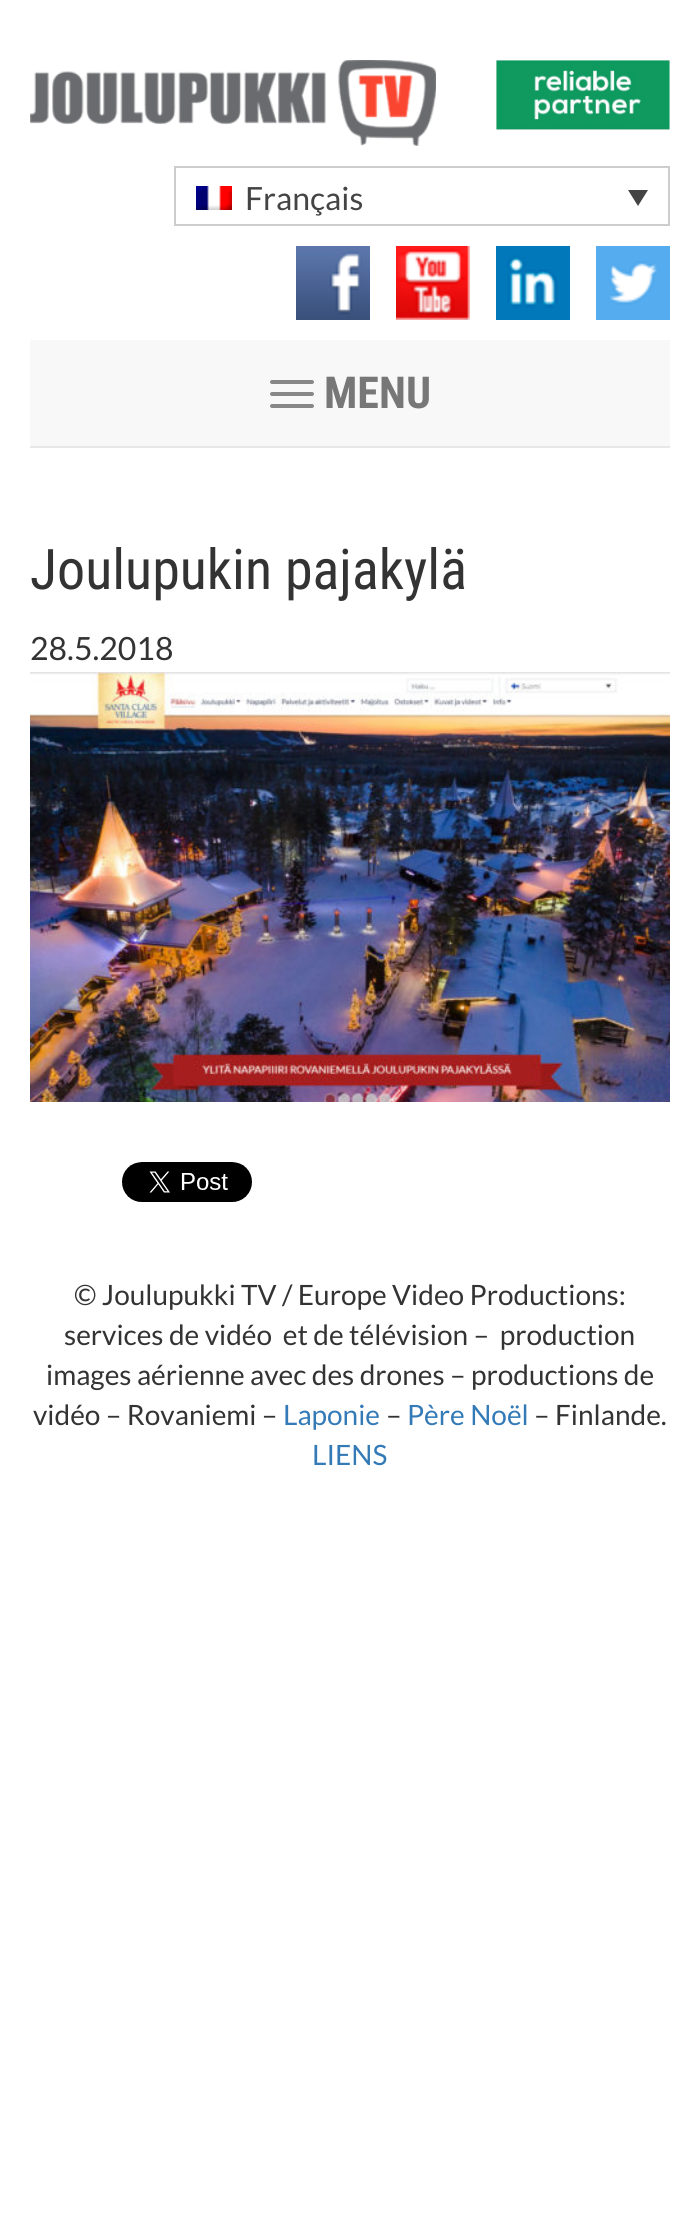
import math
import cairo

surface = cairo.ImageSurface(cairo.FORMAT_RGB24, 699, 2215)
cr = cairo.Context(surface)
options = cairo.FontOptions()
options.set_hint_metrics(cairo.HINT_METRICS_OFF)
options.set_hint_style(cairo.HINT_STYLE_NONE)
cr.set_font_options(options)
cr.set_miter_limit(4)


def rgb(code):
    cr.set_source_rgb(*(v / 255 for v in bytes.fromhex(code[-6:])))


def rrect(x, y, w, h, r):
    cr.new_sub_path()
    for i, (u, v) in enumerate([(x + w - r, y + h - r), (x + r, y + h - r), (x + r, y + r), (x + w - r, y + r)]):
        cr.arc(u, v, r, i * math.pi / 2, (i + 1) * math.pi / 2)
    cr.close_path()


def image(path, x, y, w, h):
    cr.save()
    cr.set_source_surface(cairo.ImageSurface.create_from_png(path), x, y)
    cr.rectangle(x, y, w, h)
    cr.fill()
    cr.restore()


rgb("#ffffff")
cr.paint()
image("img/1.png", 30, 60, 406, 86)
image("img/2.png", 496, 60, 174, 70)
cr.rectangle(175, 167, 494, 58)
rgb("#cdcdcd")
cr.stroke()
image("img/3.png", 196, 186, 36, 24)
rgb("#444444")
cr.new_path()
cr.move_to(628, 190)
cr.line_to(648, 190)
cr.line_to(638, 206)
cr.close_path()
cr.fill()
image("img/4.png", 296, 246, 74, 74)
image("img/5.png", 396, 246, 74, 74)
image("img/6.png", 496, 246, 74, 74)
image("img/7.png", 596, 246, 74, 74)
rgb("#f8f8f8")
cr.rectangle(30, 340, 640, 106)
cr.fill()
rgb("#e7e7e7")
cr.rectangle(30, 446, 640, 2)
cr.fill()
rgb("#888888")
rrect(270, 380, 44, 4, 2)
cr.fill()
rrect(270, 392, 44, 4, 2)
cr.fill()
rrect(270, 404, 44, 4, 2)
cr.fill()
image("img/8.png", 30, 672, 640, 430)
image("img/9.png", 122, 1162, 130, 40)
cr.select_font_face("Lato")
cr.set_font_size(32)
rgb("#444444")
cr.move_to(245, 210)
cr.show_text("Français")
cr.select_font_face("Roboto Condensed", cairo.FONT_SLANT_NORMAL, cairo.FONT_WEIGHT_BOLD)
cr.set_font_size(44)
rgb("#777777")
cr.move_to(324, 408)
cr.show_text("MENU")
cr.select_font_face("Roboto Condensed")
cr.set_font_size(56)
rgb("#333333")
cr.move_to(30, 589)
cr.show_text("Joulupukin pajakylä")
cr.select_font_face("Lato")
cr.set_font_size(32)
cr.move_to(30, 660)
cr.show_text("28.5.2018")
cr.set_font_size(28)
for x, y, s in [
    (74, 1305, "© Joulupukki TV / Europe Video Productions:"),
    (64, 1345, "services de vidéo  et de télévision –  production"),
    (46, 1385, "images aérienne avec des drones – productions de"),
    (33, 1425, "vidéo – Rovaniemi –"),
]:
    cr.move_to(x, y)
    cr.show_text(s)
rgb("#337ab7")
cr.move_to(283, 1425)
cr.show_text("Laponie")
rgb("#333333")
cr.move_to(386, 1425)
cr.show_text("–")
rgb("#337ab7")
cr.move_to(407, 1425)
cr.show_text("Père Noël")
rgb("#333333")
cr.move_to(534, 1425)
cr.show_text("– Finlande.")
rgb("#337ab7")
cr.move_to(312, 1465)
cr.show_text("LIENS")
surface.write_to_png("page.png")
